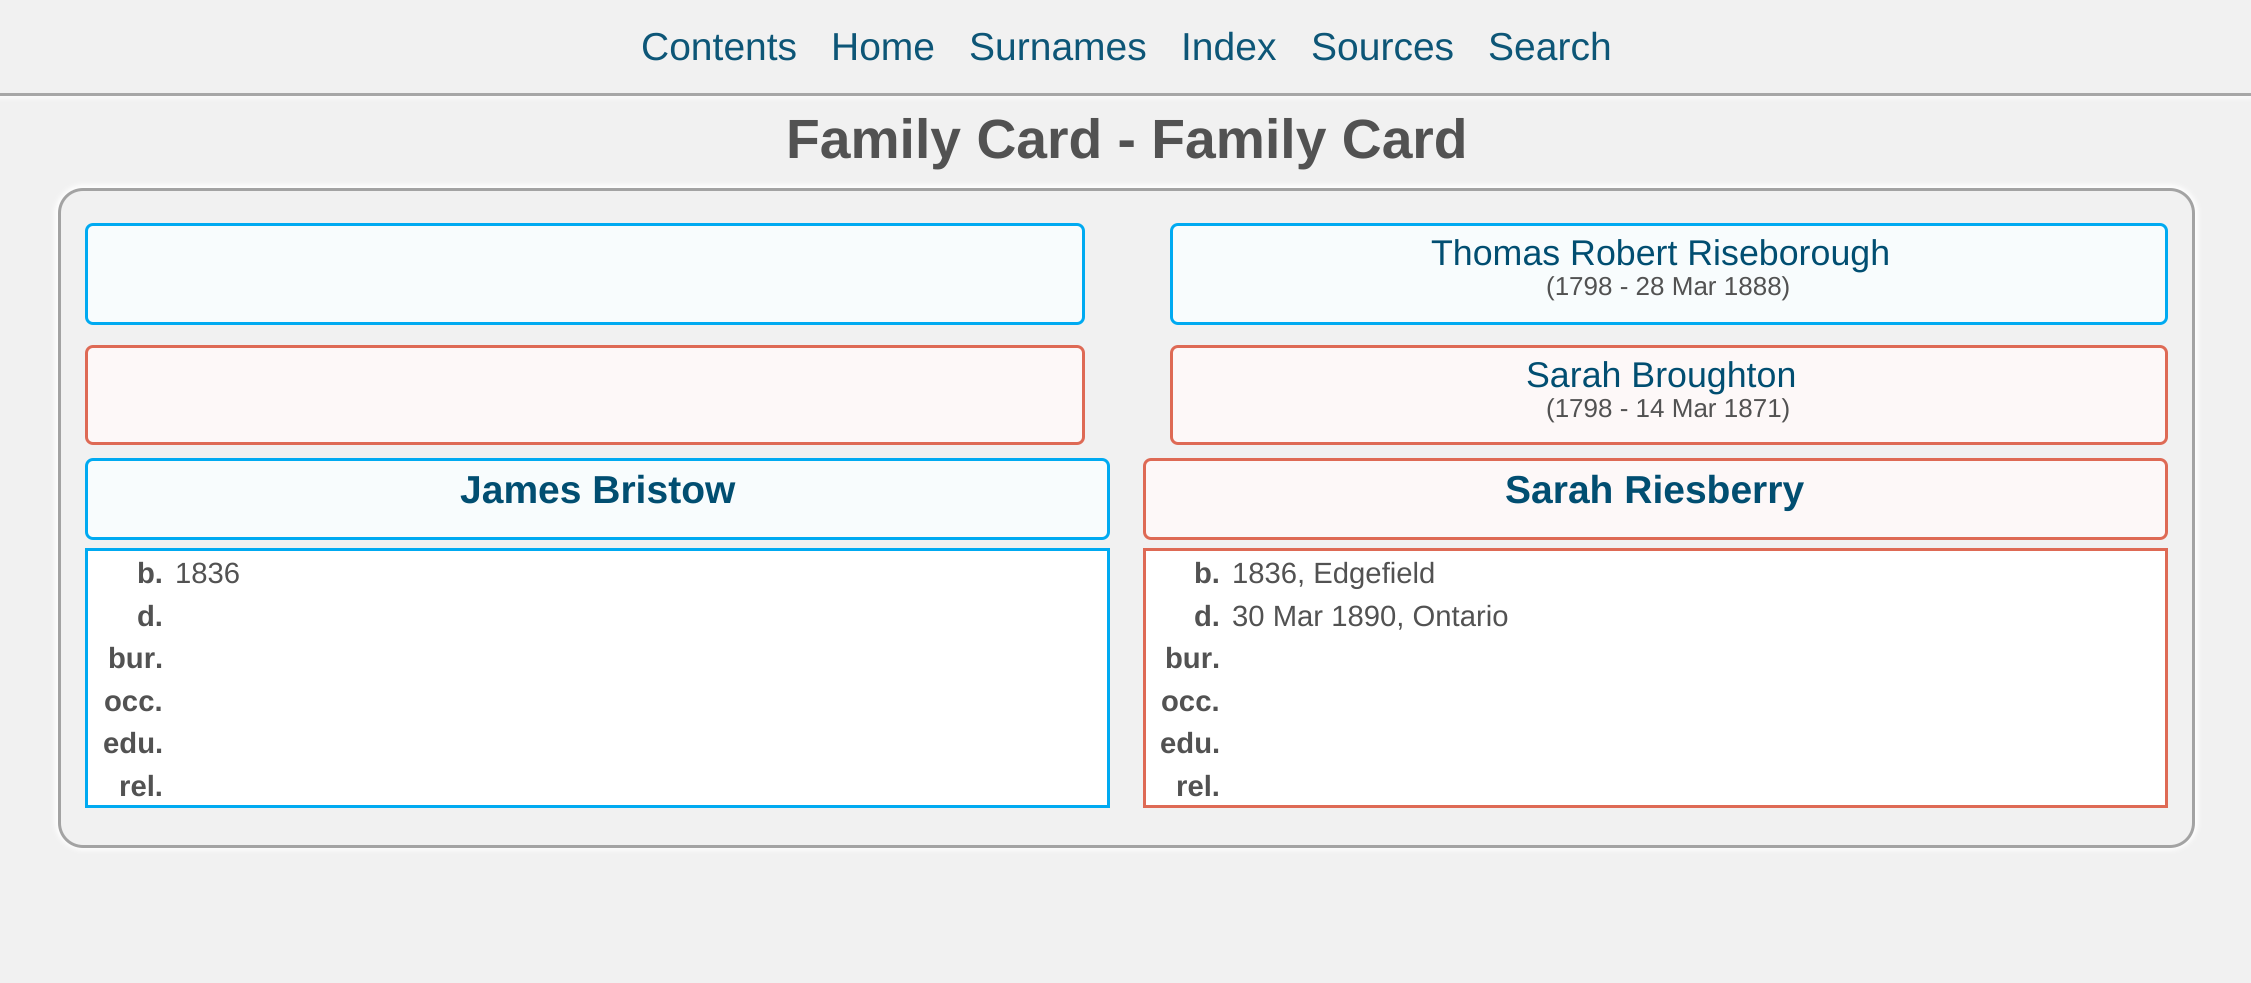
import math
import cairo

surface = cairo.ImageSurface(cairo.FORMAT_RGB24, 2251, 983)
cr = cairo.Context(surface)
options = cairo.FontOptions()
options.set_hint_metrics(cairo.HINT_METRICS_OFF)
options.set_hint_style(cairo.HINT_STYLE_NONE)
cr.set_font_options(options)
cr.set_miter_limit(4)


def rgb(code):
    cr.set_source_rgb(*(v / 255 for v in bytes.fromhex(code[-6:])))


def rrect(x, y, w, h, r):
    cr.new_sub_path()
    for i, (u, v) in enumerate([(x + w - r, y + h - r), (x + r, y + h - r), (x + r, y + r), (x + w - r, y + r)]):
        cr.arc(u, v, r, i * math.pi / 2, (i + 1) * math.pi / 2)
    cr.close_path()


def soft_shadow(x, y, w, h, r, blur, alpha):
    cr.push_group_with_content(cairo.CONTENT_ALPHA)
    cr.set_operator(cairo.OPERATOR_SOURCE)
    for i in range(15, -16, -2):
        e = blur * i / 6
        if min(w, h) + 2 * e > 0:
            cr.set_source_rgba(0, 0, 0, alpha * math.erfc((i - 1) / 8.5) / 2)
            rrect(x - e, y - e, w + 2 * e, h + 2 * e, max(0, min(r + e + blur * .6, min(w, h) / 2 + e)))
            cr.fill()
    cr.mask(cr.pop_group())


rgb("#f1f1f1")
cr.paint()
cr.save()
cr.rectangle(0, 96, 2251, 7)
cr.clip()
rgb("#fefefe")
soft_shadow(-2, -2, 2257, 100, 0, 2.5, 1)
cr.restore()
rgb("#a7a7a7")
cr.rectangle(0, 93, 2251, 3)
cr.fill()
rgb("#ffffff")
soft_shadow(55, 185, 2143, 665, 28, 2.5, 1)
rgb("#f1f1f1")
rrect(59.5, 189.5, 2134, 657, 23.5)
cr.fill_preserve()
rgb("#a3a3a3")
cr.set_line_width(3)
cr.stroke()
rgb("#f8fcfd")
rrect(86.5, 224.5, 997, 99, 6.5)
cr.fill_preserve()
rgb("#00aaf1")
cr.stroke()
rgb("#f8fcfd")
rrect(1171.5, 224.5, 995, 99, 6.5)
cr.fill_preserve()
rgb("#00aaf1")
cr.stroke()
rgb("#fdf8f8")
rrect(86.5, 346.5, 997, 97, 6.5)
cr.fill_preserve()
rgb("#de6a55")
cr.stroke()
rgb("#fdf8f8")
rrect(1171.5, 346.5, 995, 97, 6.5)
cr.fill_preserve()
rgb("#de6a55")
cr.stroke()
rgb("#f8fcfd")
rrect(86.5, 459.5, 1022, 79, 6.5)
cr.fill_preserve()
rgb("#00aaf1")
cr.stroke()
rgb("#fdf8f8")
rrect(1144.5, 459.5, 1022, 79, 6.5)
cr.fill_preserve()
rgb("#de6a55")
cr.stroke()
rgb("#ffffff")
cr.rectangle(86.5, 549.5, 1022, 257)
cr.fill_preserve()
rgb("#00aaf1")
cr.stroke()
rgb("#ffffff")
cr.rectangle(1144.5, 549.5, 1022, 257)
cr.fill_preserve()
rgb("#de6a55")
cr.stroke()
cr.select_font_face("Liberation Sans")
cr.set_font_size(39)
rgb("#0d5677")
for x, y, s in [
    (641, 60, "Contents"),
    (831, 60, "Home"),
    (969, 60, "Surnames"),
    (1181, 60, "Index"),
    (1311, 60, "Sources"),
    (1488, 60, "Search"),
]:
    cr.move_to(x, y)
    cr.show_text(s)
cr.select_font_face("Liberation Sans", cairo.FONT_SLANT_NORMAL, cairo.FONT_WEIGHT_BOLD)
cr.set_font_size(55.25)
rgb("#525252")
cr.move_to(786, 158)
cr.show_text("Family Card - Family Card")
cr.select_font_face("Liberation Sans")
cr.set_font_size(35.75)
rgb("#014e71")
cr.move_to(1431, 265)
cr.show_text("Thomas Robert Riseborough")
cr.set_font_size(26)
rgb("#525252")
cr.move_to(1546, 295)
cr.show_text("(1798 - 28 Mar 1888)")
cr.set_font_size(35.75)
rgb("#014e71")
cr.move_to(1526, 387)
cr.show_text("Sarah Broughton")
cr.set_font_size(26)
rgb("#525252")
cr.move_to(1546, 417)
cr.show_text("(1798 - 14 Mar 1871)")
cr.select_font_face("Liberation Sans", cairo.FONT_SLANT_NORMAL, cairo.FONT_WEIGHT_BOLD)
cr.set_font_size(39)
rgb("#014e71")
cr.move_to(460, 503)
cr.show_text("James Bristow")
cr.move_to(1505, 503)
cr.show_text("Sarah Riesberry")
cr.set_font_size(29.25)
rgb("#525252")
cr.move_to(137, 583)
cr.show_text("b.")
cr.select_font_face("Liberation Sans")
cr.move_to(175, 583)
cr.show_text("1836")
cr.select_font_face("Liberation Sans", cairo.FONT_SLANT_NORMAL, cairo.FONT_WEIGHT_BOLD)
for x, y, s in [
    (137, 626, "d."),
    (108, 668, "bur."),
    (104, 711, "occ."),
    (103, 753, "edu."),
    (119, 796, "rel."),
    (1194, 583, "b."),
]:
    cr.move_to(x, y)
    cr.show_text(s)
cr.select_font_face("Liberation Sans")
cr.move_to(1232, 583)
cr.show_text("1836, Edgefield")
cr.select_font_face("Liberation Sans", cairo.FONT_SLANT_NORMAL, cairo.FONT_WEIGHT_BOLD)
cr.move_to(1194, 626)
cr.show_text("d.")
cr.select_font_face("Liberation Sans")
cr.move_to(1232, 626)
cr.show_text("30 Mar 1890, Ontario")
cr.select_font_face("Liberation Sans", cairo.FONT_SLANT_NORMAL, cairo.FONT_WEIGHT_BOLD)
for x, y, s in [
    (1165, 668, "bur."),
    (1161, 711, "occ."),
    (1160, 753, "edu."),
    (1176, 796, "rel."),
]:
    cr.move_to(x, y)
    cr.show_text(s)
surface.write_to_png("page.png")
